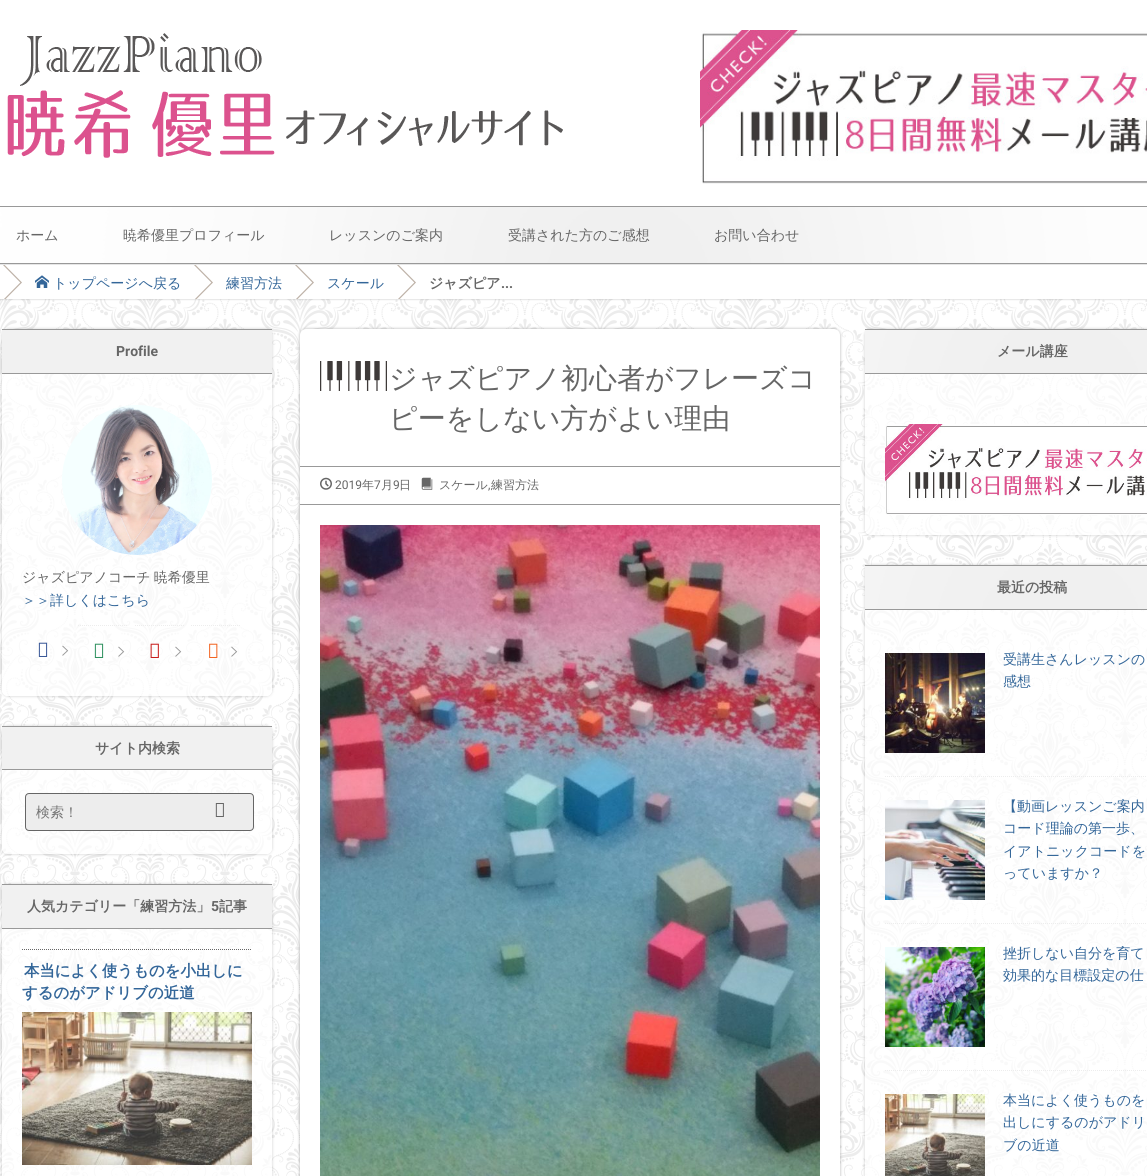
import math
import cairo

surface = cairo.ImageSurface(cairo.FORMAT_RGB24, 1147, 1176)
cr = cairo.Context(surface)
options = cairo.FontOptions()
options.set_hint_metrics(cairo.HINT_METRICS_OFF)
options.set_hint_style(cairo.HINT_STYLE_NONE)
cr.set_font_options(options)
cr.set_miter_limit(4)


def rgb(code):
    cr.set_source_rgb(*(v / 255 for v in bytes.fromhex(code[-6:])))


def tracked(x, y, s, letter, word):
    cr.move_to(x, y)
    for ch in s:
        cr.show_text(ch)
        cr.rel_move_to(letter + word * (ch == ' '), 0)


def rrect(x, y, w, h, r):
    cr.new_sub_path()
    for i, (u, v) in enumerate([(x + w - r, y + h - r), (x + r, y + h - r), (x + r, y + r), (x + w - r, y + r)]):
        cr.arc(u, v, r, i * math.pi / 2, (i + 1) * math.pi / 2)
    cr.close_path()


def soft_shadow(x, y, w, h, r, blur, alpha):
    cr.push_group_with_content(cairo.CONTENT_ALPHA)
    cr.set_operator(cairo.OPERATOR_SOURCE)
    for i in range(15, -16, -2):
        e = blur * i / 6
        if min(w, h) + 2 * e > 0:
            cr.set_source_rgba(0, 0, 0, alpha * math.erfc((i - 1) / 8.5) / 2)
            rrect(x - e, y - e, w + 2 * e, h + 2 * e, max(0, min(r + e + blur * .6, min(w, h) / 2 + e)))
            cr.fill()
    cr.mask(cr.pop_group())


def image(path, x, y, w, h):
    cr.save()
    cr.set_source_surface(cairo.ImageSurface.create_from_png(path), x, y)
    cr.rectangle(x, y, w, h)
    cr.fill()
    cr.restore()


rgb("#ffffff")
cr.paint()
image("img/1.png", 0, 299, 1147, 877)
image("img/2.png", 7, 33, 556, 125)
image("img/3.png", 700, 30, 447, 154)
rgb("#999999")
cr.rectangle(0, 206, 1147, 1)
cr.fill()
cr.rectangle(0, 263, 1147, 1)
cr.fill()
image("img/4.png", 0, 207, 1147, 56)
rgb("#000000")
soft_shadow(0, 265, 1147, 35, 0, 0.5, 0.1)
rgb("#ffffff")
cr.rectangle(0, 265, 1147, 34)
cr.fill()
rgb("#e6e6e6")
cr.rectangle(0, 264, 1147, 1)
cr.fill()
image("img/5.png", 3, 265, 19, 34)
image("img/6.png", 35, 275, 14, 13)
image("img/5.png", 194, 265, 19, 34)
image("img/5.png", 295, 265, 19, 34)
image("img/5.png", 397, 265, 19, 34)
cr.save()
cr.set_fill_rule(cairo.FILL_RULE_EVEN_ODD)
cr.new_path()
cr.move_to(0, 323)
cr.line_to(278, 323)
cr.line_to(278, 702)
cr.line_to(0, 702)
cr.close_path()
cr.move_to(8, 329)
cr.line_to(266, 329)
cr.curve_to(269.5, 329, 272, 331.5, 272, 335)
cr.line_to(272, 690)
cr.curve_to(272, 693.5, 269.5, 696, 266, 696)
cr.line_to(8, 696)
cr.curve_to(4.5, 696, 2, 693.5, 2, 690)
cr.line_to(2, 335)
cr.curve_to(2, 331.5, 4.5, 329, 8, 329)
cr.close_path()
cr.clip()
rgb("#000000")
soft_shadow(2, 329, 270, 367, 6, 1.5, 0.2)
cr.restore()
cr.set_source_rgba(1, 1, 1, 0.7)
rrect(2, 329, 270, 367, 6)
cr.fill()
for x, y, w, h, color in [
    (2, 330, 270, 43, "#f1f1f1"),
    (2, 329, 270, 1, "#999999"),
    (2, 373, 270, 1, "#999999"),
]:
    rgb(color)
    cr.rectangle(x, y, w, h)
    cr.fill()
image("img/7.png", 62, 405, 150, 150)
image("img/8.png", 38, 642, 10, 15)
cr.new_path()
cr.move_to(78, 625.5)
cr.line_to(128, 625.5)
rgb("#ededed")
cr.set_line_width(1)
cr.set_dash([1, 1])
cr.stroke()
image("img/9.png", 94, 643, 10, 15)
cr.new_path()
cr.move_to(135, 625.5)
cr.line_to(185, 625.5)
cr.stroke()
image("img/10.png", 150, 643, 9, 15)
cr.new_path()
cr.move_to(191, 625.5)
cr.line_to(241, 625.5)
cr.stroke()
image("img/11.png", 209, 643, 9, 15)
cr.save()
cr.set_fill_rule(cairo.FILL_RULE_EVEN_ODD)
cr.new_path()
cr.move_to(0, 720)
cr.line_to(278, 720)
cr.line_to(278, 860)
cr.line_to(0, 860)
cr.close_path()
cr.move_to(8, 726)
cr.line_to(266, 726)
cr.curve_to(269.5, 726, 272, 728.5, 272, 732)
cr.line_to(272, 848)
cr.curve_to(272, 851.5, 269.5, 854, 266, 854)
cr.line_to(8, 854)
cr.curve_to(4.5, 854, 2, 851.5, 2, 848)
cr.line_to(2, 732)
cr.curve_to(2, 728.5, 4.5, 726, 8, 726)
cr.close_path()
cr.clip()
rgb("#000000")
soft_shadow(2, 726, 270, 128, 6, 1.5, 0.2)
cr.restore()
cr.set_source_rgba(1, 1, 1, 0.7)
rrect(2, 726, 270, 128, 6)
cr.fill()
for x, y, w, h, color in [
    (2, 727, 270, 42, "#f1f1f1"),
    (2, 726, 270, 1, "#999999"),
    (2, 769, 270, 1, "#999999"),
]:
    rgb(color)
    cr.rectangle(x, y, w, h)
    cr.fill()
rgb("#ededed")
rrect(25.5, 793.5, 228, 37, 3.5)
cr.fill_preserve()
rgb("#666666")
cr.set_dash([])
cr.stroke()
image("img/12.png", 215, 803, 9, 14)
cr.save()
cr.set_fill_rule(cairo.FILL_RULE_EVEN_ODD)
cr.new_path()
cr.move_to(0, 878)
cr.line_to(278, 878)
cr.line_to(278, 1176)
cr.line_to(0, 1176)
cr.close_path()
cr.move_to(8, 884)
cr.line_to(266, 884)
cr.curve_to(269.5, 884, 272, 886.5, 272, 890)
cr.line_to(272, 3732)
cr.curve_to(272, 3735.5, 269.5, 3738, 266, 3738)
cr.line_to(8, 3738)
cr.curve_to(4.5, 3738, 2, 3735.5, 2, 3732)
cr.line_to(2, 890)
cr.curve_to(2, 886.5, 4.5, 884, 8, 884)
cr.close_path()
cr.clip()
rgb("#000000")
soft_shadow(2, 884, 270, 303, 6, 1.5, 0.2)
cr.restore()
cr.set_source_rgba(1, 1, 1, 0.7)
cr.rectangle(2, 929, 270, 247)
cr.fill()
rgb("#f1f1f1")
cr.rectangle(2, 885, 270, 43)
cr.fill()
rgb("#999999")
cr.rectangle(2, 884, 270, 1)
cr.rectangle(2, 928, 270, 1)
cr.fill()
cr.new_path()
cr.move_to(22, 949.5)
cr.line_to(252, 949.5)
rgb("#666666")
cr.set_dash([1, 1])
cr.stroke()
image("img/13.png", 22, 1012, 230, 153)
rgb("#000000")
soft_shadow(300, 329, 540, 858, 6, 1.5, 0.3)
rgb("#ffffff")
rrect(300, 329, 540, 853, 6)
cr.fill()
image("img/14.png", 320, 361, 67, 30)
rgb("#999999")
cr.rectangle(300, 466, 540, 1)
cr.fill()
cr.rectangle(300, 504, 540, 1)
cr.fill()
image("img/15.png", 320, 477, 12, 13)
image("img/16.png", 421, 477, 12, 13)
image("img/17.png", 320, 525, 500, 651)
cr.save()
cr.set_fill_rule(cairo.FILL_RULE_EVEN_ODD)
cr.new_path()
cr.move_to(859, 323)
cr.line_to(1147, 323)
cr.line_to(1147, 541)
cr.line_to(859, 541)
cr.close_path()
cr.move_to(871, 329)
cr.line_to(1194, 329)
cr.curve_to(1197.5, 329, 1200, 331.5, 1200, 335)
cr.line_to(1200, 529)
cr.curve_to(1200, 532.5, 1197.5, 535, 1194, 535)
cr.line_to(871, 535)
cr.curve_to(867.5, 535, 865, 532.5, 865, 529)
cr.line_to(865, 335)
cr.curve_to(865, 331.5, 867.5, 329, 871, 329)
cr.close_path()
cr.clip()
rgb("#000000")
soft_shadow(865, 329, 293, 206, 6, 1.5, 0.2)
cr.restore()
cr.set_source_rgba(1, 1, 1, 0.7)
rrect(865, 329, 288, 206, 6)
cr.fill()
image("img/18.png", 865, 330, 282, 43)
rgb("#999999")
cr.rectangle(865, 329, 282, 1)
cr.fill()
cr.rectangle(865, 373, 282, 1)
cr.fill()
image("img/19.png", 885, 424, 262, 91)
cr.save()
cr.set_fill_rule(cairo.FILL_RULE_EVEN_ODD)
cr.new_path()
cr.move_to(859, 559)
cr.line_to(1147, 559)
cr.line_to(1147, 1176)
cr.line_to(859, 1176)
cr.close_path()
cr.move_to(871, 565)
cr.line_to(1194, 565)
cr.curve_to(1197.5, 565, 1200, 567.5, 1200, 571)
cr.line_to(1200, 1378)
cr.curve_to(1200, 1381.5, 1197.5, 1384, 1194, 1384)
cr.line_to(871, 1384)
cr.curve_to(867.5, 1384, 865, 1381.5, 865, 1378)
cr.line_to(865, 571)
cr.curve_to(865, 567.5, 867.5, 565, 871, 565)
cr.close_path()
cr.clip()
rgb("#000000")
soft_shadow(865, 565, 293, 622, 6, 1.5, 0.2)
cr.restore()
cr.set_source_rgba(1, 1, 1, 0.7)
cr.rectangle(865, 610, 282, 566)
cr.fill()
image("img/18.png", 865, 566, 282, 43)
rgb("#999999")
cr.rectangle(865, 565, 282, 1)
cr.fill()
cr.rectangle(865, 609, 282, 1)
cr.fill()
image("img/20.png", 885, 653, 100, 100)
cr.new_path()
cr.move_to(885, 776.5)
cr.line_to(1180, 776.5)
rgb("#ededed")
cr.stroke()
image("img/21.png", 885, 800, 100, 100)
cr.new_path()
cr.move_to(885, 923.5)
cr.line_to(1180, 923.5)
cr.stroke()
image("img/22.png", 885, 947, 100, 100)
cr.new_path()
cr.move_to(885, 1070.5)
cr.line_to(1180, 1070.5)
cr.stroke()
image("img/23.png", 885, 1094, 100, 82)
cr.select_font_face("WenQuanYi Zen Hei Medium")
cr.set_font_size(14)
rgb("#666666")
for x, y, s in [
    (16, 240, "ホーム"),
    (123, 240, "暁希優里プロフィール"),
    (329, 240, "レッスンのご案内"),
    (508, 240, "受講された方のご感想"),
    (714, 240, "お問い合わせ"),
]:
    cr.move_to(x, y)
    cr.show_text(s)
rgb("#336699")
for x, y, s in [
    (53, 288, "トップページへ戻る"),
    (226, 288, "練習方法"),
    (327, 288, "スケール"),
]:
    cr.move_to(x, y)
    cr.show_text(s)
cr.select_font_face("WenQuanYi Zen Hei", cairo.FONT_SLANT_NORMAL, cairo.FONT_WEIGHT_BOLD)
rgb("#666666")
cr.move_to(429, 288)
cr.show_text("ジャズピア")
cr.select_font_face("Roboto", cairo.FONT_SLANT_NORMAL, cairo.FONT_WEIGHT_BOLD)
cr.move_to(501, 288)
cr.show_text("...")
cr.move_to(116, 356)
cr.show_text("Profile")
cr.select_font_face("WenQuanYi Zen Hei Medium")
tracked(22, 582, "ジャズピアノコーチ 暁希優里", 0, -1)
rgb("#336699")
cr.move_to(22, 605)
cr.show_text("＞＞詳しくはこちら")
cr.select_font_face("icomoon", cairo.FONT_SLANT_NORMAL, cairo.FONT_WEIGHT_BOLD)
rgb("#999999")
for x, y, s in [
    (58, 657, ">"),
    (114, 658, ">"),
    (171, 658, ">"),
    (227, 658, ">"),
]:
    cr.move_to(x, y)
    cr.show_text(s)
cr.select_font_face("WenQuanYi Zen Hei", cairo.FONT_SLANT_NORMAL, cairo.FONT_WEIGHT_BOLD)
rgb("#666666")
cr.move_to(95, 753)
cr.show_text("サイト内検索")
cr.select_font_face("WenQuanYi Zen Hei Medium")
rgb("#757575")
cr.move_to(36, 817)
cr.show_text("検索！")
cr.select_font_face("WenQuanYi Zen Hei", cairo.FONT_SLANT_NORMAL, cairo.FONT_WEIGHT_BOLD)
rgb("#666666")
cr.move_to(27, 911)
cr.show_text("人気カテゴリー「練習方法」")
cr.select_font_face("Roboto", cairo.FONT_SLANT_NORMAL, cairo.FONT_WEIGHT_BOLD)
cr.move_to(211, 911)
cr.show_text("5")
cr.select_font_face("WenQuanYi Zen Hei", cairo.FONT_SLANT_NORMAL, cairo.FONT_WEIGHT_BOLD)
cr.move_to(219, 911)
cr.show_text("記事")
cr.set_font_size(15.4)
rgb("#336699")
cr.move_to(24, 976)
cr.show_text("本当によく使うものを小出しに")
cr.move_to(22, 998)
cr.show_text("するのがアドリブの近道")
cr.select_font_face("WenQuanYi Zen Hei Medium")
cr.set_font_size(28)
rgb("#666666")
cr.move_to(389, 388)
cr.show_text("ジャズピアノ初心者がフレーズコ")
cr.move_to(389, 428)
cr.show_text("ピーをしない方がよい理由")
cr.select_font_face("Roboto")
cr.set_font_size(12)
cr.move_to(335, 489)
cr.show_text("2019")
cr.select_font_face("WenQuanYi Zen Hei Medium")
cr.move_to(362, 489)
cr.show_text("年")
cr.select_font_face("Roboto")
cr.move_to(374, 489)
cr.show_text("7")
cr.select_font_face("WenQuanYi Zen Hei Medium")
cr.move_to(381, 489)
cr.show_text("月")
cr.select_font_face("Roboto")
cr.move_to(393, 489)
cr.show_text("9")
cr.select_font_face("WenQuanYi Zen Hei Medium")
cr.move_to(399, 489)
cr.show_text("日")
cr.move_to(439, 489)
cr.show_text("スケール")
cr.select_font_face("Roboto")
cr.move_to(488, 489)
cr.show_text(",")
cr.select_font_face("WenQuanYi Zen Hei Medium")
cr.move_to(491, 489)
cr.show_text("練習方法")
cr.select_font_face("WenQuanYi Zen Hei", cairo.FONT_SLANT_NORMAL, cairo.FONT_WEIGHT_BOLD)
cr.set_font_size(14)
cr.move_to(997, 356)
cr.show_text("メール講座")
cr.move_to(997, 592)
cr.show_text("最近の投稿")
cr.select_font_face("WenQuanYi Zen Hei Medium")
rgb("#336699")
for x, y, s in [
    (1003, 664, "受講生さんレッスンの"),
    (1003, 686, "感想"),
    (1003, 811, "【動画レッスンご案内"),
    (1003, 833, "コード理論の第一歩、"),
    (1003, 856, "イアトニックコードを"),
    (1003, 878, "っていますか？"),
    (1003, 958, "挫折しない自分を育て"),
    (1003, 980, "効果的な目標設定の仕"),
    (1003, 1105, "本当によく使うものを"),
    (1003, 1127, "出しにするのがアドリ"),
    (1003, 1150, "ブの近道"),
]:
    cr.move_to(x, y)
    cr.show_text(s)
surface.write_to_png("page.png")
